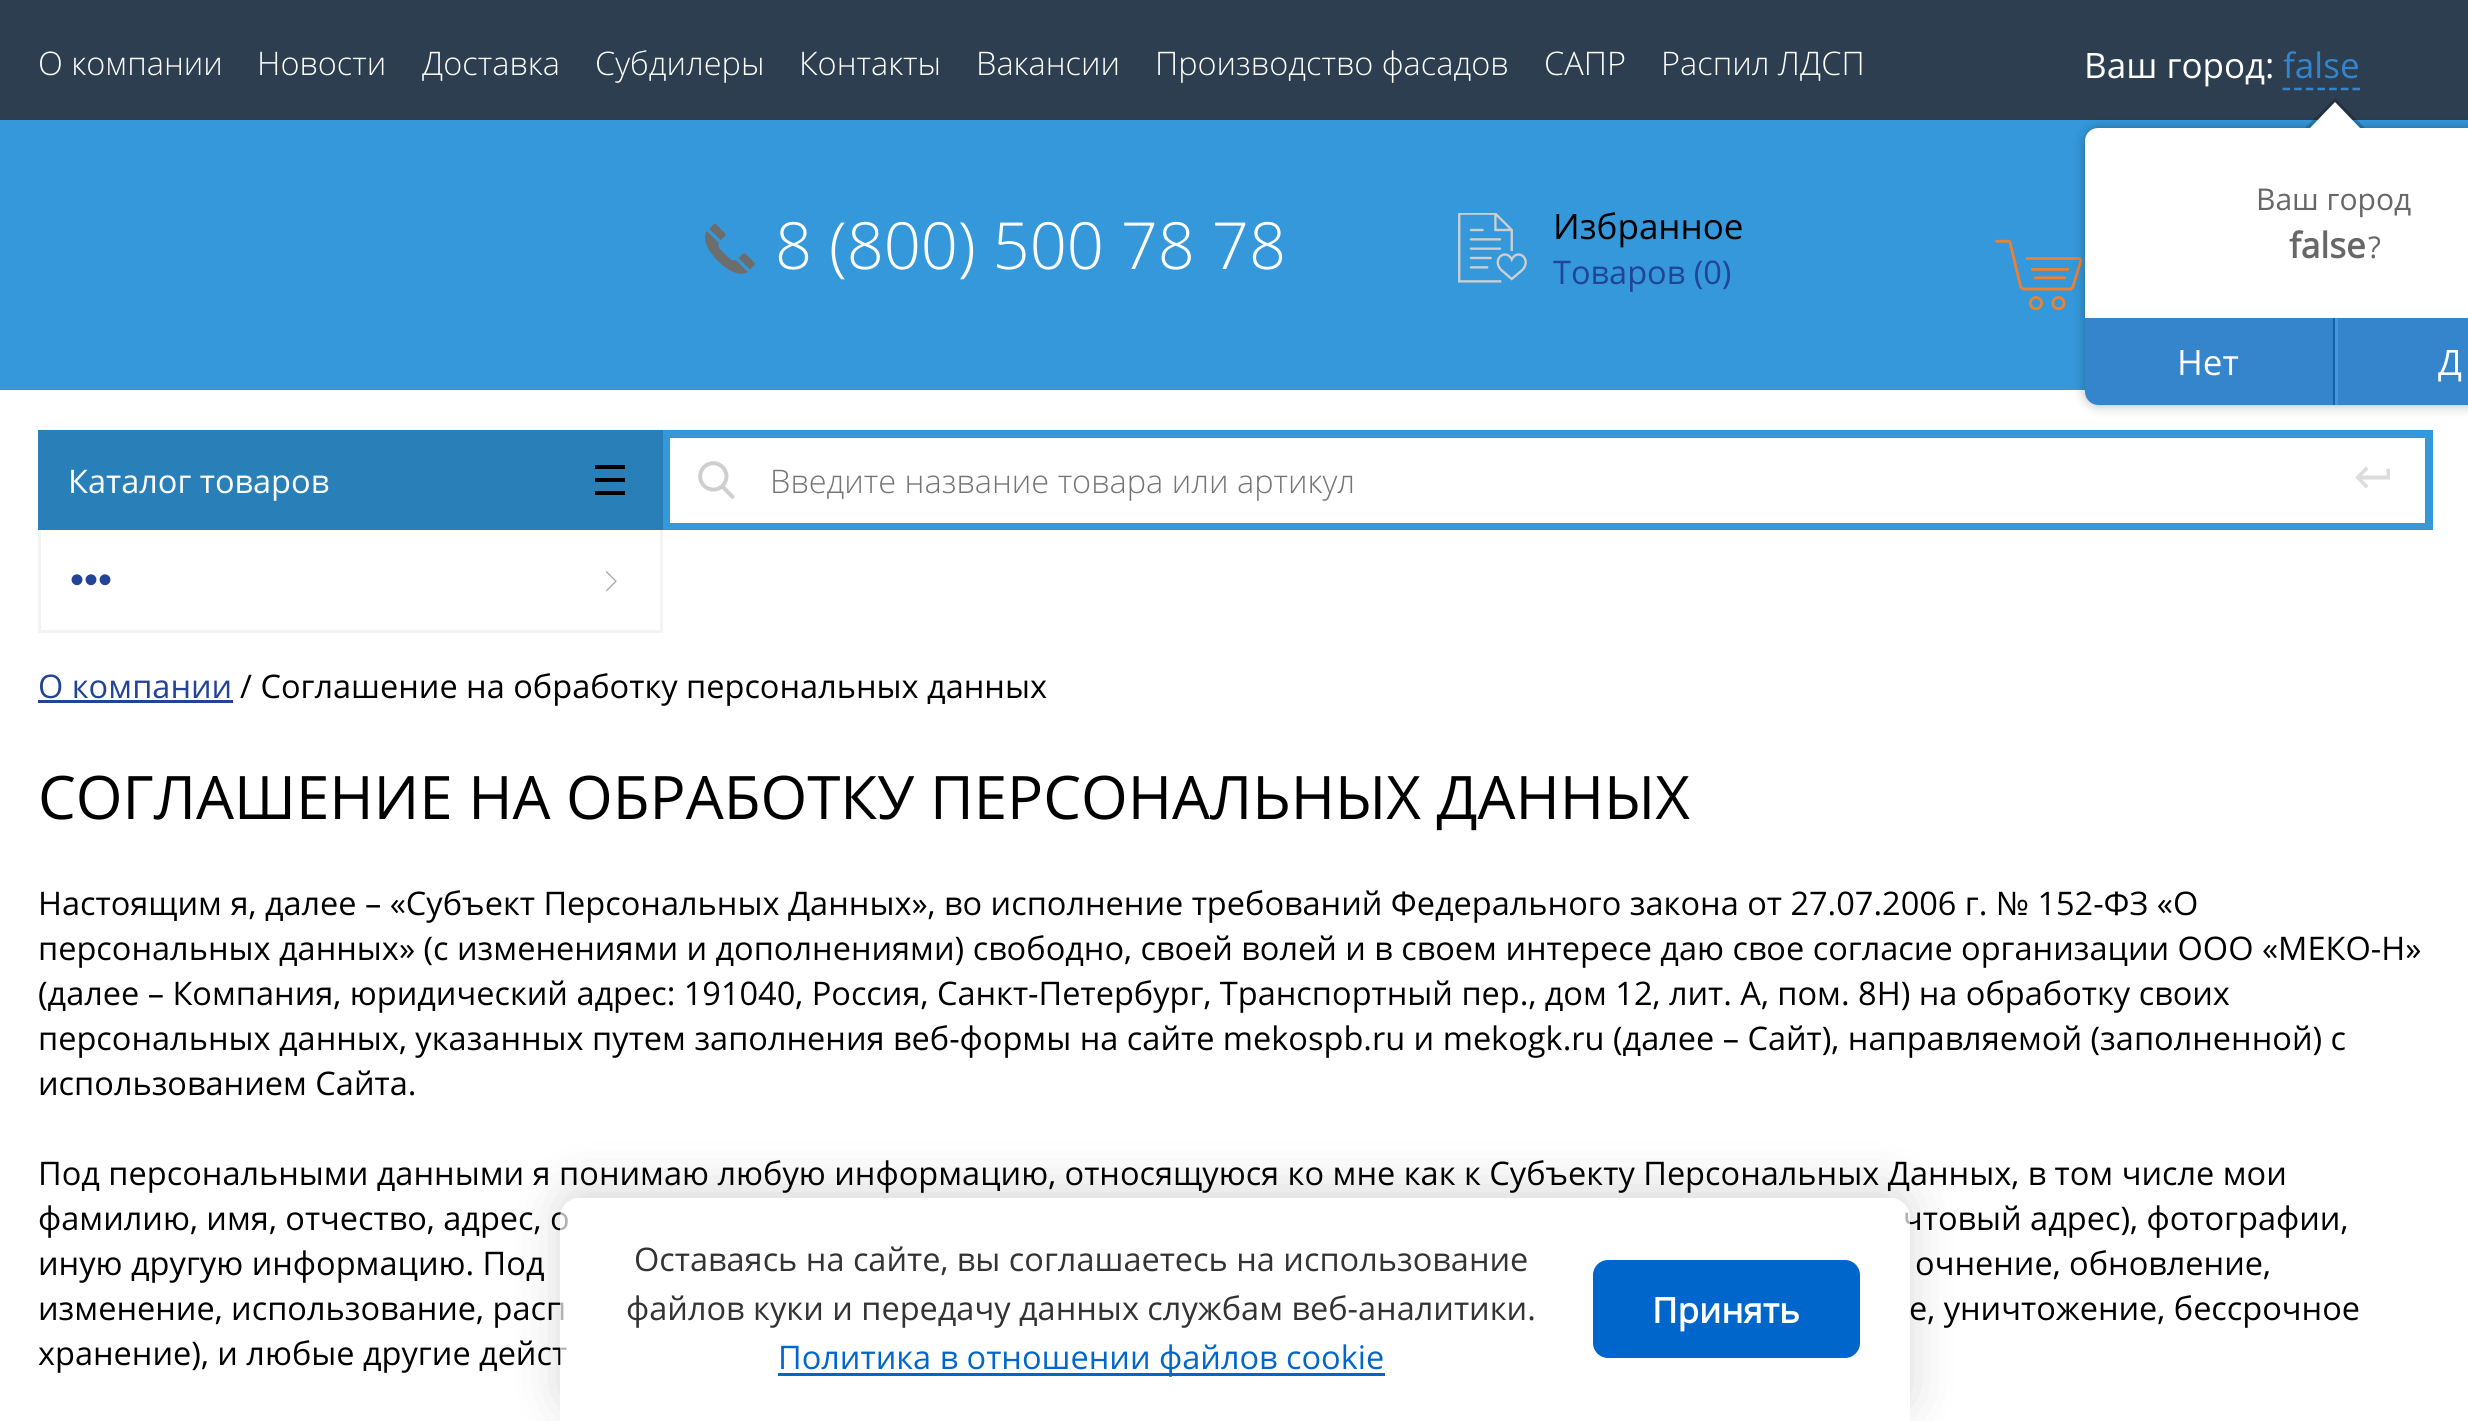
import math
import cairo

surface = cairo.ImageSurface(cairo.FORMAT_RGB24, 2468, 1421)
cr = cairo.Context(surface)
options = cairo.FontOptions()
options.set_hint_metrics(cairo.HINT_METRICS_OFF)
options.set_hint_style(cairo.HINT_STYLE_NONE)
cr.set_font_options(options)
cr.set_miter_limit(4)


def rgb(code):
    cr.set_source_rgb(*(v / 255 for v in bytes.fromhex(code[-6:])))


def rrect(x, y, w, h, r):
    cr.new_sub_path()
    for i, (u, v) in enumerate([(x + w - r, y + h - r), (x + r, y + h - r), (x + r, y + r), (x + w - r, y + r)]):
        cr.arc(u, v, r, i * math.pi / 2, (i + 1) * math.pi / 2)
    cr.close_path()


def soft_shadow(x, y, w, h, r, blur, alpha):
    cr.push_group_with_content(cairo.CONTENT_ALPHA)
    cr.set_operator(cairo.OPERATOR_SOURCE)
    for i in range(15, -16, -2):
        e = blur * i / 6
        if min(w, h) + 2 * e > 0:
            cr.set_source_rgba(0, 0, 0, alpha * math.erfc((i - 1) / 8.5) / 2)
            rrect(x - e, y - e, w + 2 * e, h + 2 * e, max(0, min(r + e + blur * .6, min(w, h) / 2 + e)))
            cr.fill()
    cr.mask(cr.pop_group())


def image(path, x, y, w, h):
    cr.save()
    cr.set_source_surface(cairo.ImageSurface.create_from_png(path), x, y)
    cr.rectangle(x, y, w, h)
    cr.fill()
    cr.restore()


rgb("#ffffff")
cr.paint()
rgb("#2c3e50")
cr.rectangle(0, 0, 2468, 120)
cr.fill()
cr.new_path()
cr.move_to(2282.5, 89)
cr.line_to(2360, 89)
rgb("#3585cc")
cr.set_line_width(2.5)
cr.set_dash([7.5, 4.17])
cr.stroke()
rgb("#3498db")
cr.rectangle(0, 120, 2468, 270)
cr.fill()
image("img/3.png", 1995, 239, 88, 72)
rgb("#000000")
soft_shadow(2085, 128, 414, 277, 13, 6, 0.3)
rgb("#ffffff")
rrect(2085, 128, 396, 277, 13)
cr.fill()
cr.set_source_rgba(0, 0, 0, 0.2)
cr.new_path()
cr.move_to(2365, 128)
cr.line_to(2305, 128)
cr.line_to(2335, 98)
cr.close_path()
cr.fill()
rgb("#ffffff")
cr.new_path()
cr.move_to(2360, 128)
cr.line_to(2310, 128)
cr.line_to(2335, 102)
cr.close_path()
cr.fill()
rgb("#3585cc")
cr.new_path()
cr.move_to(2085, 318)
cr.line_to(2335, 318)
cr.line_to(2335, 405)
cr.line_to(2098, 405)
cr.curve_to(2091, 405, 2085, 399, 2085, 392)
cr.close_path()
cr.fill()
for x, y, w, h, color in [
    (2333, 318, 2, 87, "#1363aa"),
    (2338, 318, 130, 87, "#3585cc"),
    (2335, 318, 3, 87, "#4696dd"),
]:
    rgb(color)
    cr.rectangle(x, y, w, h)
    cr.fill()
image("img/1.png", 705, 223, 50, 51)
image("img/2.png", 1458, 213, 69, 70)
for x, y, w, h, color in [
    (38, 430, 625, 100, "#2980b9"),
    (595, 465, 30, 4, "#000000"),
    (595, 478, 30, 4, "#000000"),
    (595, 491, 30, 4, "#000000"),
    (660, 530, 3, 103, "#f3f3f3"),
    (38, 630, 625, 3, "#f3f3f3"),
    (38, 530, 3, 103, "#f3f3f3"),
]:
    rgb(color)
    cr.rectangle(x, y, w, h)
    cr.fill()
image("img/4.png", 605, 571, 12, 21)
cr.rectangle(667, 434, 1762, 92)
rgb("#3498db")
cr.set_line_width(8)
cr.set_dash([])
cr.stroke()
rgb("#ffffff")
cr.rectangle(670, 438, 1755, 85)
cr.fill()
image("img/5.png", 698, 461, 37, 38)
rgb("#dcdcdc")
cr.set_fill_rule(cairo.FILL_RULE_EVEN_ODD)
cr.new_path()
cr.move_to(2386.5, 468.5)
cr.line_to(2386.5, 475.5)
cr.line_to(2362, 475.5)
cr.line_to(2368.5, 469)
cr.line_to(2366, 466.5)
cr.line_to(2355, 477.5)
cr.line_to(2366, 488.5)
cr.line_to(2368.5, 486)
cr.line_to(2362, 479.5)
cr.line_to(2390, 479.5)
cr.line_to(2390, 468.5)
cr.close_path()
cr.fill()
rgb("#214496")
cr.rectangle(38, 700, 195, 3)
cr.fill()
cr.save()
cr.new_path()
cr.move_to(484, 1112)
cr.line_to(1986, 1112)
cr.line_to(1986, 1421)
cr.line_to(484, 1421)
cr.close_path()
cr.move_to(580, 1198)
cr.line_to(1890, 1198)
cr.curve_to(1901, 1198, 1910, 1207, 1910, 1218)
cr.line_to(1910, 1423)
cr.line_to(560, 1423)
cr.line_to(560, 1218)
cr.curve_to(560, 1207, 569, 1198, 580, 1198)
cr.close_path()
cr.clip()
rgb("#000000")
soft_shadow(560, 1188, 1350, 225, 20, 25, 0.15)
cr.restore()
cr.select_font_face("Open Sans Light")
cr.set_font_size(32.5)
rgb("#ffffff")
for x, y, s in [
    (38, 75, "О компании"),
    (257, 75, "Новости"),
    (422, 75, "Доставка"),
    (595, 75, "Субдилеры"),
    (799, 75, "Контакты"),
    (976, 75, "Вакансии"),
    (1155, 75, "Производство фасадов"),
    (1544, 75, "САПР"),
    (1661, 75, "Распил ЛДСП"),
]:
    cr.move_to(x, y)
    cr.show_text(s)
cr.select_font_face("Open Sans")
cr.set_font_size(35)
cr.move_to(2084, 78)
cr.show_text("Ваш город:")
rgb("#3585cc")
cr.move_to(2283, 78)
cr.show_text("false")
cr.set_font_size(30)
rgb("#676767")
cr.move_to(2256, 210)
cr.show_text("Ваш город")
cr.select_font_face("Open Sans", cairo.FONT_SLANT_NORMAL, cairo.FONT_WEIGHT_BOLD)
cr.set_font_size(35)
cr.move_to(2289, 258)
cr.show_text("false")
cr.select_font_face("Open Sans")
cr.set_font_size(30)
cr.move_to(2368, 258)
cr.show_text("?")
cr.set_font_size(35)
rgb("#ffffff")
cr.move_to(2177, 375)
cr.show_text("Нет")
cr.move_to(2438, 375)
cr.show_text("Д")
cr.select_font_face("Open Sans Light")
cr.set_font_size(65)
cr.move_to(775, 269)
cr.show_text("8 (800) 500 78 78")
cr.select_font_face("Open Sans")
cr.set_font_size(35)
rgb("#000000")
cr.move_to(1553, 239)
cr.show_text("Избранное")
cr.set_font_size(32.5)
rgb("#214496")
cr.move_to(1553, 284)
cr.show_text("Товаров (0)")
rgb("#ffffff")
cr.move_to(68, 493)
cr.show_text("Каталог товаров")
cr.select_font_face("Liberation Sans")
cr.set_font_size(40)
rgb("#214496")
cr.move_to(70, 593)
cr.show_text("•••")
cr.select_font_face("Open Sans Light")
cr.set_font_size(32.5)
rgb("#757575")
cr.move_to(770, 493)
cr.show_text("Введите название товара или артикул")
cr.select_font_face("Open Sans")
rgb("#214496")
cr.move_to(38, 698)
cr.show_text("О компании")
rgb("#000000")
cr.move_to(240, 698)
cr.show_text("/ Соглашение на обработку персональных данных")
cr.set_font_size(60)
cr.move_to(38, 819)
cr.show_text("СОГЛАШЕНИЕ НА ОБРАБОТКУ ПЕРСОНАЛЬНЫХ ДАННЫХ")
cr.set_font_size(32.5)
for x, y, s in [
    (38, 915, "Настоящим я, далее – «Субъект Персональных Данных», во исполнение требований Федерального закона от 27.07.2006 г. № 152-ФЗ «О"),
    (38, 960, "персональных данных» (с изменениями и дополнениями) свободно, своей волей и в своем интересе даю свое согласие организации ООО «МЕКО-Н»"),
    (38, 1005, "(далее – Компания, юридический адрес: 191040, Россия, Санкт-Петербург, Транспортный пер., дом 12, лит. А, пом. 8Н) на обработку своих"),
    (38, 1050, "персональных данных, указанных путем заполнения веб-формы на сайте mekospb.ru и mekogk.ru (далее – Сайт), направляемой (заполненной) с"),
    (38, 1095, "использованием Сайта."),
    (38, 1185, "Под персональными данными я понимаю любую информацию, относящуюся ко мне как к Субъекту Персональных Данных, в том числе мои"),
    (38, 1230, "фамилию, имя, отчество, адрес, о"),
    (1903, 1230, "чтовый адрес), фотографии,"),
    (38, 1275, "иную другую информацию. Под"),
    (1915, 1275, "очнение, обновление,"),
    (38, 1320, "изменение, использование, расп"),
    (1909, 1320, "е, уничтожение, бессрочное"),
    (38, 1365, "хранение), и любые другие дейст"),
]:
    cr.move_to(x, y)
    cr.show_text(s)
cr.set_source_rgba(1, 1, 1, 0.7)
cr.new_path()
cr.move_to(580, 1198)
cr.line_to(1890, 1198)
cr.curve_to(1901, 1198, 1910, 1207, 1910, 1218)
cr.line_to(1910, 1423)
cr.line_to(560, 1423)
cr.line_to(560, 1218)
cr.curve_to(560, 1207, 569, 1198, 580, 1198)
cr.close_path()
cr.fill()
rgb("#333333")
cr.move_to(634, 1271)
cr.show_text("Оставаясь на сайте, вы соглашаетесь на использование")
cr.move_to(626, 1320)
cr.show_text("файлов куки и передачу данных службам веб-аналитики.")
rgb("#0066cc")
cr.rectangle(778, 1373, 607, 3)
cr.fill()
cr.move_to(778, 1369)
cr.show_text("Политика в отношении файлов cookie")
rrect(1593, 1260, 267, 98, 15)
cr.fill()
cr.select_font_face("Open Sans", cairo.FONT_SLANT_NORMAL, cairo.FONT_WEIGHT_BOLD)
cr.set_font_size(35)
rgb("#ffffff")
cr.move_to(1652, 1323)
cr.show_text("Принять")
surface.write_to_png("page.png")
